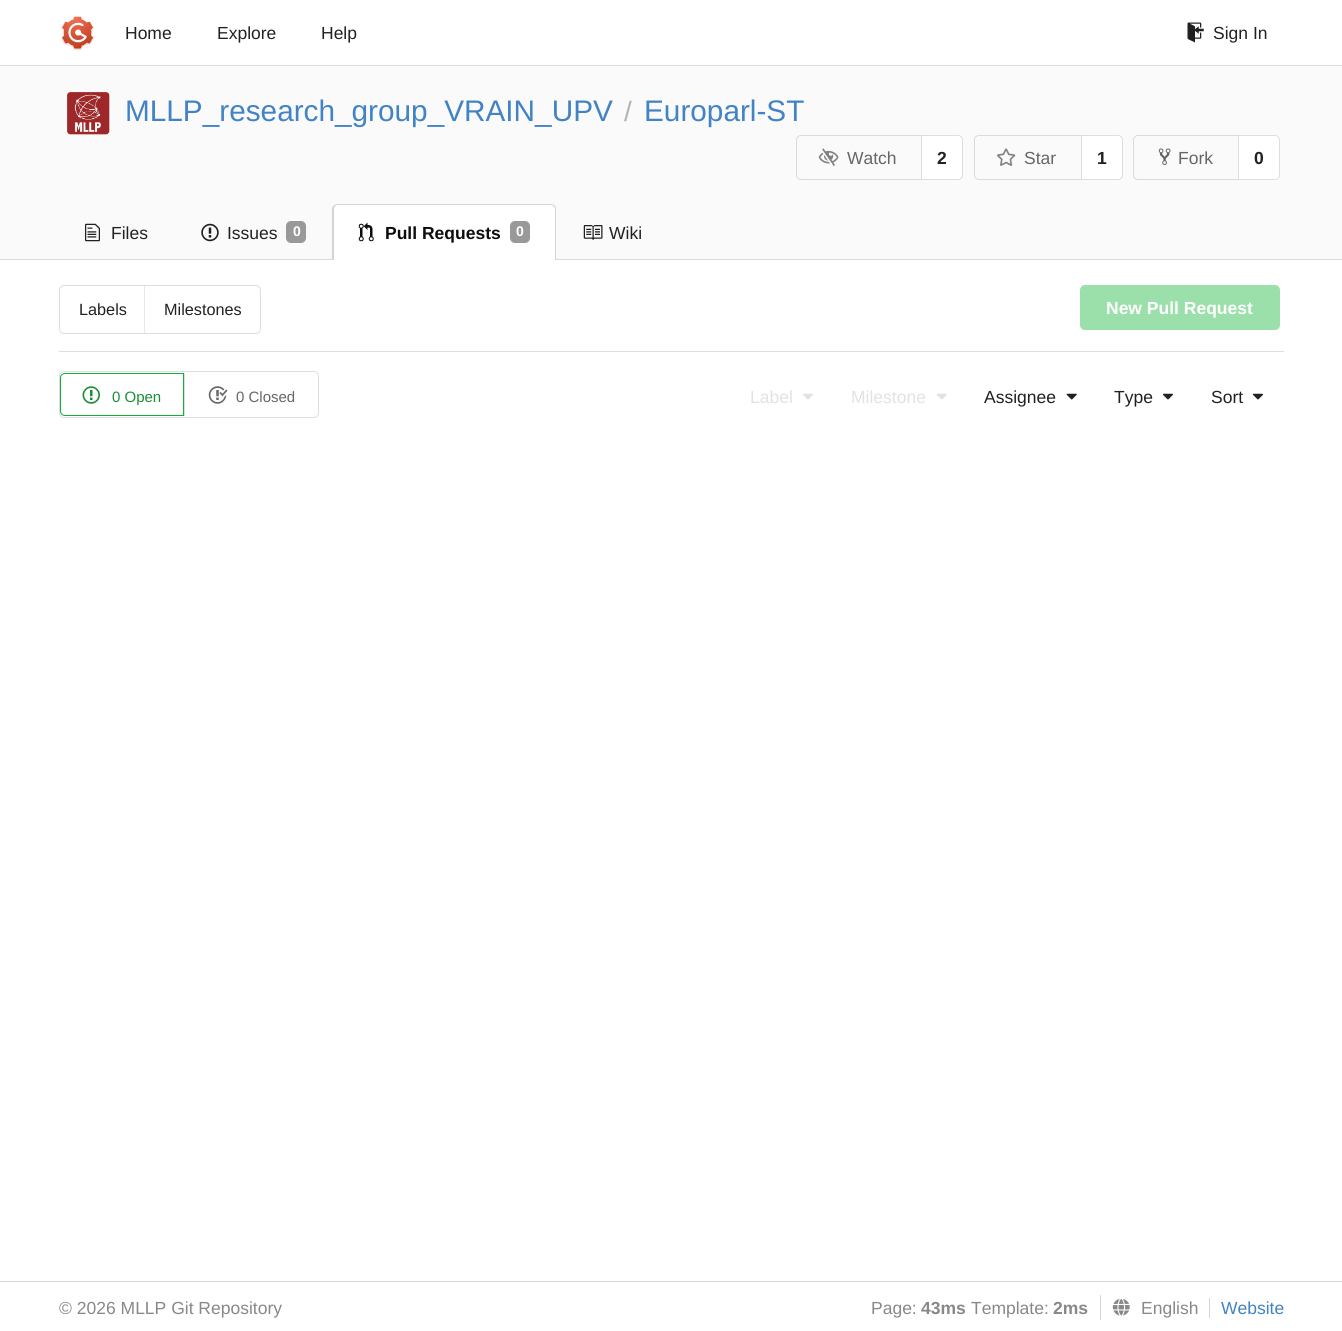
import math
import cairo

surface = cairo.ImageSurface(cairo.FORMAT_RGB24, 1342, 1331)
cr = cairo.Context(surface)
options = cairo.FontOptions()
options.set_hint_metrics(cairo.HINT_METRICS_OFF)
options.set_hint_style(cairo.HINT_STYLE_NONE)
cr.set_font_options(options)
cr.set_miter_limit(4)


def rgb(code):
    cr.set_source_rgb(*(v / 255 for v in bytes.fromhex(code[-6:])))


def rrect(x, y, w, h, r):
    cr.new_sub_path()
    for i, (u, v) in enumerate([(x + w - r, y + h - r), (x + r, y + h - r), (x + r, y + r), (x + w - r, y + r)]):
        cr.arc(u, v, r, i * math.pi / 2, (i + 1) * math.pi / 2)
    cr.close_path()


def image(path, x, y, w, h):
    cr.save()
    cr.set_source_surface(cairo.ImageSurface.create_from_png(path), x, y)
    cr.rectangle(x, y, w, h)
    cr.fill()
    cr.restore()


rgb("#ffffff")
cr.paint()
rgb("#dddddd")
cr.rectangle(0, 65, 1342, 1)
cr.fill()
image("img/1.png", 61, 16, 33, 35)
image("img/2.png", 1187, 22, 17, 21)
rgb("#fafafa")
cr.rectangle(0, 66, 1342, 193)
cr.fill()
image("img/3.png", 67, 92, 43, 43)
cr.new_path()
cr.move_to(801, 135.5)
cr.line_to(922.5, 135.5)
cr.line_to(922.5, 179.5)
cr.line_to(801, 179.5)
cr.curve_to(798.5, 179.5, 796.5, 177.5, 796.5, 175)
cr.line_to(796.5, 140)
cr.curve_to(796.5, 137.5, 798.5, 135.5, 801, 135.5)
cr.close_path()
rgb("#dadada")
cr.set_line_width(1)
cr.stroke()
image("img/4.png", 818, 148, 21, 18)
rgb("#ffffff")
cr.new_path()
cr.move_to(921.5, 135.5)
cr.line_to(958, 135.5)
cr.curve_to(960.5, 135.5, 962.5, 137.5, 962.5, 140)
cr.line_to(962.5, 175)
cr.curve_to(962.5, 177.5, 960.5, 179.5, 958, 179.5)
cr.line_to(921.5, 179.5)
cr.close_path()
cr.fill_preserve()
rgb("#dedede")
cr.stroke()
cr.new_path()
cr.move_to(979, 135.5)
cr.line_to(1082.5, 135.5)
cr.line_to(1082.5, 179.5)
cr.line_to(979, 179.5)
cr.curve_to(976.5, 179.5, 974.5, 177.5, 974.5, 175)
cr.line_to(974.5, 140)
cr.curve_to(974.5, 137.5, 976.5, 135.5, 979, 135.5)
cr.close_path()
rgb("#dadada")
cr.stroke()
image("img/5.png", 997, 148, 19, 18)
rgb("#ffffff")
cr.new_path()
cr.move_to(1081.5, 135.5)
cr.line_to(1118, 135.5)
cr.curve_to(1120.5, 135.5, 1122.5, 137.5, 1122.5, 140)
cr.line_to(1122.5, 175)
cr.curve_to(1122.5, 177.5, 1120.5, 179.5, 1118, 179.5)
cr.line_to(1081.5, 179.5)
cr.close_path()
cr.fill_preserve()
rgb("#dedede")
cr.stroke()
cr.new_path()
cr.move_to(1138, 135.5)
cr.line_to(1238.5, 135.5)
cr.line_to(1238.5, 179.5)
cr.line_to(1138, 179.5)
cr.curve_to(1135.5, 179.5, 1133.5, 177.5, 1133.5, 175)
cr.line_to(1133.5, 140)
cr.curve_to(1133.5, 137.5, 1135.5, 135.5, 1138, 135.5)
cr.close_path()
rgb("#dadada")
cr.stroke()
image("img/6.png", 1158, 148, 13, 17)
rgb("#ffffff")
cr.new_path()
cr.move_to(1238.5, 135.5)
cr.line_to(1275, 135.5)
cr.curve_to(1277.5, 135.5, 1279.5, 137.5, 1279.5, 140)
cr.line_to(1279.5, 175)
cr.curve_to(1279.5, 177.5, 1277.5, 179.5, 1275, 179.5)
cr.line_to(1238.5, 179.5)
cr.close_path()
cr.fill_preserve()
rgb("#dedede")
cr.stroke()
image("img/7.png", 85, 223, 15, 19)
image("img/8.png", 201, 223, 18, 19)
rgb("#999999")
rrect(286, 221, 20, 22, 5)
cr.fill()
rgb("#dadada")
cr.rectangle(0, 259, 1342, 1)
cr.fill()
rgb("#ffffff")
cr.new_path()
cr.move_to(338, 204)
cr.line_to(551, 204)
cr.curve_to(554, 204, 556, 206, 556, 209)
cr.line_to(556, 260)
cr.line_to(333, 260)
cr.line_to(333, 209)
cr.curve_to(333, 206, 335, 204, 338, 204)
cr.close_path()
cr.fill()
rgb("#d4d4d5")
cr.set_fill_rule(cairo.FILL_RULE_EVEN_ODD)
cr.new_path()
cr.move_to(338, 204)
cr.line_to(551, 204)
cr.curve_to(554, 204, 556, 206, 556, 209)
cr.line_to(556, 260)
cr.line_to(332, 260)
cr.line_to(332, 209)
cr.curve_to(332, 206, 335, 204, 338, 204)
cr.close_path()
cr.move_to(338, 205)
cr.line_to(551, 205)
cr.curve_to(553, 205, 555, 207, 555, 209)
cr.line_to(555, 260)
cr.line_to(334, 260)
cr.line_to(334, 209)
cr.curve_to(334, 207, 335, 205, 338, 205)
cr.close_path()
cr.fill()
image("img/9.png", 358, 222, 16, 20)
rgb("#999999")
rrect(510, 221, 20, 22, 5)
cr.fill()
image("img/10.png", 583, 225, 20, 15)
rrect(59.5, 285.5, 201, 48, 4.5)
rgb("#dedede")
cr.stroke()
rgb("#e9e9e9")
cr.rectangle(144, 286, 1, 47)
cr.fill()
rgb("#9be0ab")
rrect(1080, 285, 200, 45, 5)
cr.fill()
rgb("#dedede")
cr.rectangle(59, 351, 1225, 1)
cr.fill()
rrect(59.5, 371.5, 259, 46, 4.5)
cr.stroke()
cr.new_path()
cr.move_to(65, 373.5)
cr.line_to(183.5, 373.5)
cr.line_to(183.5, 415.5)
cr.line_to(65, 415.5)
cr.curve_to(62.5, 415.5, 60.5, 413.5, 60.5, 411)
cr.line_to(60.5, 378)
cr.curve_to(60.5, 375.5, 62.5, 373.5, 65, 373.5)
cr.close_path()
rgb("#13ae38")
cr.stroke()
image("img/11.png", 82, 386, 18, 18)
rgb("#dedede")
cr.rectangle(184, 373, 1, 43)
cr.fill()
image("img/12.png", 208, 386, 20, 18)
image("img/13.png", 803, 393, 10, 7)
image("img/14.png", 936, 393, 11, 7)
image("img/15.png", 1066, 393, 11, 7)
image("img/16.png", 1162, 393, 11, 7)
image("img/16.png", 1252, 393, 11, 7)
rgb("#d6d6d6")
cr.rectangle(0, 1281, 1342, 1)
cr.fill()
cr.rectangle(1100, 1295, 1, 25)
cr.fill()
image("img/17.png", 1112, 1298, 18, 18)
cr.rectangle(1209, 1298, 1, 20)
cr.fill()
cr.select_font_face("Liberation Sans")
cr.set_font_size(17.5)
rgb("#212121")
for x, y, s in [
    (125, 39, "Home"),
    (217, 39, "Explore"),
    (321, 39, "Help"),
    (1213, 39, "Sign In"),
]:
    cr.move_to(x, y)
    cr.show_text(s)
cr.set_font_size(29.75)
rgb("#4183c4")
cr.move_to(125, 121)
cr.show_text("MLLP_research_group_VRAIN_UPV")
cr.set_font_size(28)
rgb("#b4b4b4")
cr.move_to(624, 121)
cr.show_text("/")
cr.set_font_size(29.75)
rgb("#4183c4")
cr.move_to(644, 121)
cr.show_text("Europarl-ST")
cr.set_font_size(17.5)
rgb("#666666")
cr.move_to(847, 164)
cr.show_text("Watch")
cr.select_font_face("Liberation Sans", cairo.FONT_SLANT_NORMAL, cairo.FONT_WEIGHT_BOLD)
rgb("#212121")
cr.move_to(937, 164)
cr.show_text("2")
cr.select_font_face("Liberation Sans")
rgb("#666666")
cr.move_to(1024, 164)
cr.show_text("Star")
cr.select_font_face("Liberation Sans", cairo.FONT_SLANT_NORMAL, cairo.FONT_WEIGHT_BOLD)
rgb("#212121")
cr.move_to(1097, 164)
cr.show_text("1")
cr.select_font_face("Liberation Sans")
rgb("#666666")
cr.move_to(1178, 164)
cr.show_text("Fork")
cr.select_font_face("Liberation Sans", cairo.FONT_SLANT_NORMAL, cairo.FONT_WEIGHT_BOLD)
rgb("#212121")
cr.move_to(1254, 164)
cr.show_text("0")
cr.select_font_face("Liberation Sans")
cr.move_to(111, 239)
cr.show_text("Files")
cr.move_to(227, 239)
cr.show_text("Issues")
cr.select_font_face("Liberation Sans", cairo.FONT_SLANT_NORMAL, cairo.FONT_WEIGHT_BOLD)
cr.set_font_size(14)
rgb("#ffffff")
cr.move_to(293, 236)
cr.show_text("0")
cr.set_font_size(17.5)
rgb("#0d0d0d")
cr.move_to(385, 239)
cr.show_text("Pull Requests")
cr.set_font_size(14)
rgb("#ffffff")
cr.move_to(516, 236)
cr.show_text("0")
cr.select_font_face("Liberation Sans")
cr.set_font_size(17.5)
rgb("#212121")
cr.move_to(609, 239)
cr.show_text("Wiki")
cr.set_font_size(16.25)
cr.move_to(79, 315)
cr.show_text("Labels")
cr.move_to(164, 315)
cr.show_text("Milestones")
cr.select_font_face("Liberation Sans", cairo.FONT_SLANT_NORMAL, cairo.FONT_WEIGHT_BOLD)
cr.set_font_size(17.5)
rgb("#ffffff")
cr.move_to(1106, 314)
cr.show_text("New Pull Request")
cr.select_font_face("Liberation Sans")
cr.set_font_size(15)
rgb("#198f35")
cr.move_to(112, 402)
cr.show_text("0 Open")
rgb("#666666")
cr.move_to(236, 402)
cr.show_text("0 Closed")
cr.set_font_size(17.5)
rgb("#e2e2e2")
cr.move_to(750, 403)
cr.show_text("Label")
cr.move_to(851, 403)
cr.show_text("Milestone")
rgb("#212121")
for x, y, s in [
    (984, 403, "Assignee"),
    (1114, 403, "Type"),
    (1211, 403, "Sort"),
]:
    cr.move_to(x, y)
    cr.show_text(s)
rgb("#888888")
cr.move_to(59, 1314)
cr.show_text("© 2026 MLLP Git Repository")
cr.move_to(871, 1314)
cr.show_text("Page:")
cr.select_font_face("Liberation Sans", cairo.FONT_SLANT_NORMAL, cairo.FONT_WEIGHT_BOLD)
cr.move_to(921, 1314)
cr.show_text("43ms")
cr.select_font_face("Liberation Sans")
cr.move_to(971, 1314)
cr.show_text("Template:")
cr.select_font_face("Liberation Sans", cairo.FONT_SLANT_NORMAL, cairo.FONT_WEIGHT_BOLD)
cr.move_to(1053, 1314)
cr.show_text("2ms")
cr.select_font_face("Liberation Sans")
cr.move_to(1141, 1314)
cr.show_text("English")
rgb("#4183c4")
cr.move_to(1221, 1314)
cr.show_text("Website")
surface.write_to_png("page.png")
